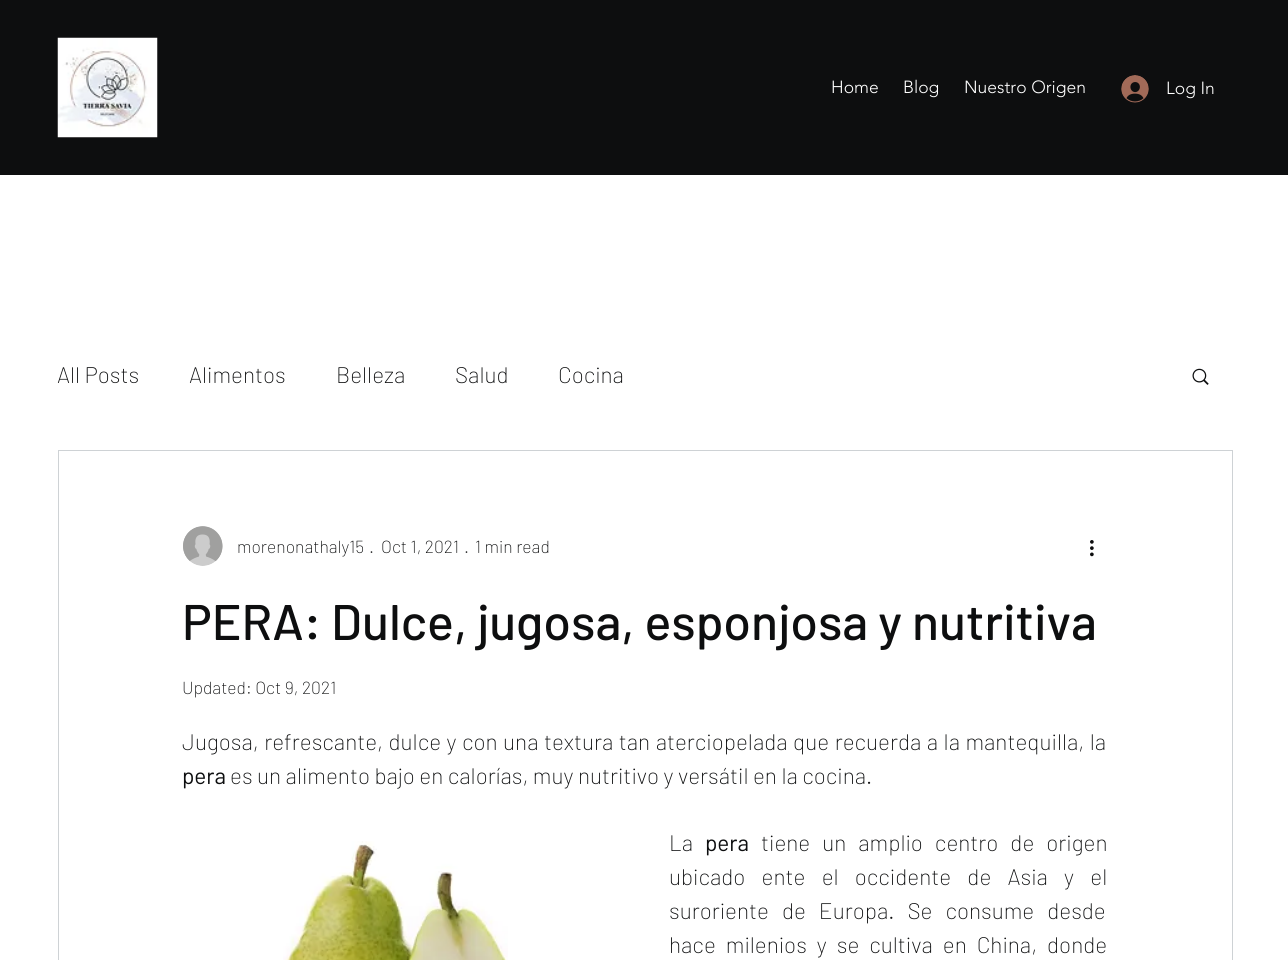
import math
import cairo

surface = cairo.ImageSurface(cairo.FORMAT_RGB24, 1288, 960)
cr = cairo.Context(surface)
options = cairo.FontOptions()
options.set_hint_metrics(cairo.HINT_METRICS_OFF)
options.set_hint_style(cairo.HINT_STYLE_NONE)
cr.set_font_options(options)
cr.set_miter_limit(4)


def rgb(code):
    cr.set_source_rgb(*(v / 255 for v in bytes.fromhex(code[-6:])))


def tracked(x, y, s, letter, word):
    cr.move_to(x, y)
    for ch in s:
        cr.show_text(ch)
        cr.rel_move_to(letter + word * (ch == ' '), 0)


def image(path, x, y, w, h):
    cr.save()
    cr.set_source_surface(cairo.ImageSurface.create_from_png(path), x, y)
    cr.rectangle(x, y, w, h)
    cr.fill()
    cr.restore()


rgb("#ffffff")
cr.paint()
rgb("#0d0e0f")
cr.rectangle(0, 0, 1288, 175)
cr.fill()
image("img/1.png", 57, 37, 101, 101)
image("img/2.png", 1121, 75, 28, 28)
image("img/3.png", 1192, 368, 17, 17)
cr.rectangle(58.5, 450.5, 1174, 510)
rgb("#ced2d5")
cr.set_line_width(1)
cr.stroke()
image("img/4.png", 183, 526, 40, 40)
image("img/5.png", 1090, 540, 4, 17)
image("img/6.png", 283, 841, 225, 119)
cr.select_font_face("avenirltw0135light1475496 Light")
cr.set_font_size(17.5)
rgb("#ffffff")
for x, y, s in [
    (831, 93, "Home"),
    (903, 93, "Blog"),
    (964, 93, "Nuestro Origen"),
    (1166, 94, "Log In"),
]:
    cr.move_to(x, y)
    cr.show_text(s)
cr.select_font_face("Barlow ExtraLight")
cr.set_font_size(22.5)
rgb("#0d0e0f")
for x, y, s in [
    (57, 383, "All Posts"),
    (189, 383, "Alimentos"),
    (336, 383, "Belleza"),
    (455, 383, "Salud"),
    (558, 383, "Cocina"),
]:
    cr.move_to(x, y)
    cr.show_text(s)
cr.set_font_size(17.5)
for x, y, s in [
    (237, 553, "morenonathaly15"),
    (371, 553, "·"),
    (381, 553, "Oct 1, 2021"),
    (466, 553, "·"),
    (475, 553, "1 min read"),
]:
    cr.move_to(x, y)
    cr.show_text(s)
cr.select_font_face("Barlow Medium")
cr.set_font_size(50)
cr.move_to(182, 640)
cr.show_text("PERA: Dulce, jugosa, esponjosa y nutritiva")
cr.select_font_face("Barlow ExtraLight")
cr.set_font_size(17.5)
cr.move_to(182, 694)
cr.show_text("Updated: Oct 9, 2021")
cr.set_font_size(22.5)
tracked(182, 750, "Jugosa, refrescante, dulce y con una textura tan aterciopelada que recuerda a la mantequilla, la", 0, 1)
cr.select_font_face("Barlow")
cr.move_to(182, 784)
cr.show_text("pera")
cr.select_font_face("Barlow ExtraLight")
cr.move_to(230, 784)
cr.show_text("es un alimento bajo en calorías, muy nutritivo y versátil en la cocina.")
cr.move_to(669, 851)
cr.show_text("La")
cr.select_font_face("Barlow")
cr.move_to(705, 851)
cr.show_text("pera")
cr.select_font_face("Barlow ExtraLight")
tracked(761, 851, "tiene un amplio centro de origen", 0, 7.5)
tracked(669, 885, "ubicado ente el occidente de Asia y el", 0, 11.75)
tracked(669, 919, "suroriente de Europa. Se consume desde", 0, 8.5)
tracked(669, 953, "hace milenios y se cultiva en China, donde", 0, 5.5)
surface.write_to_png("page.png")
